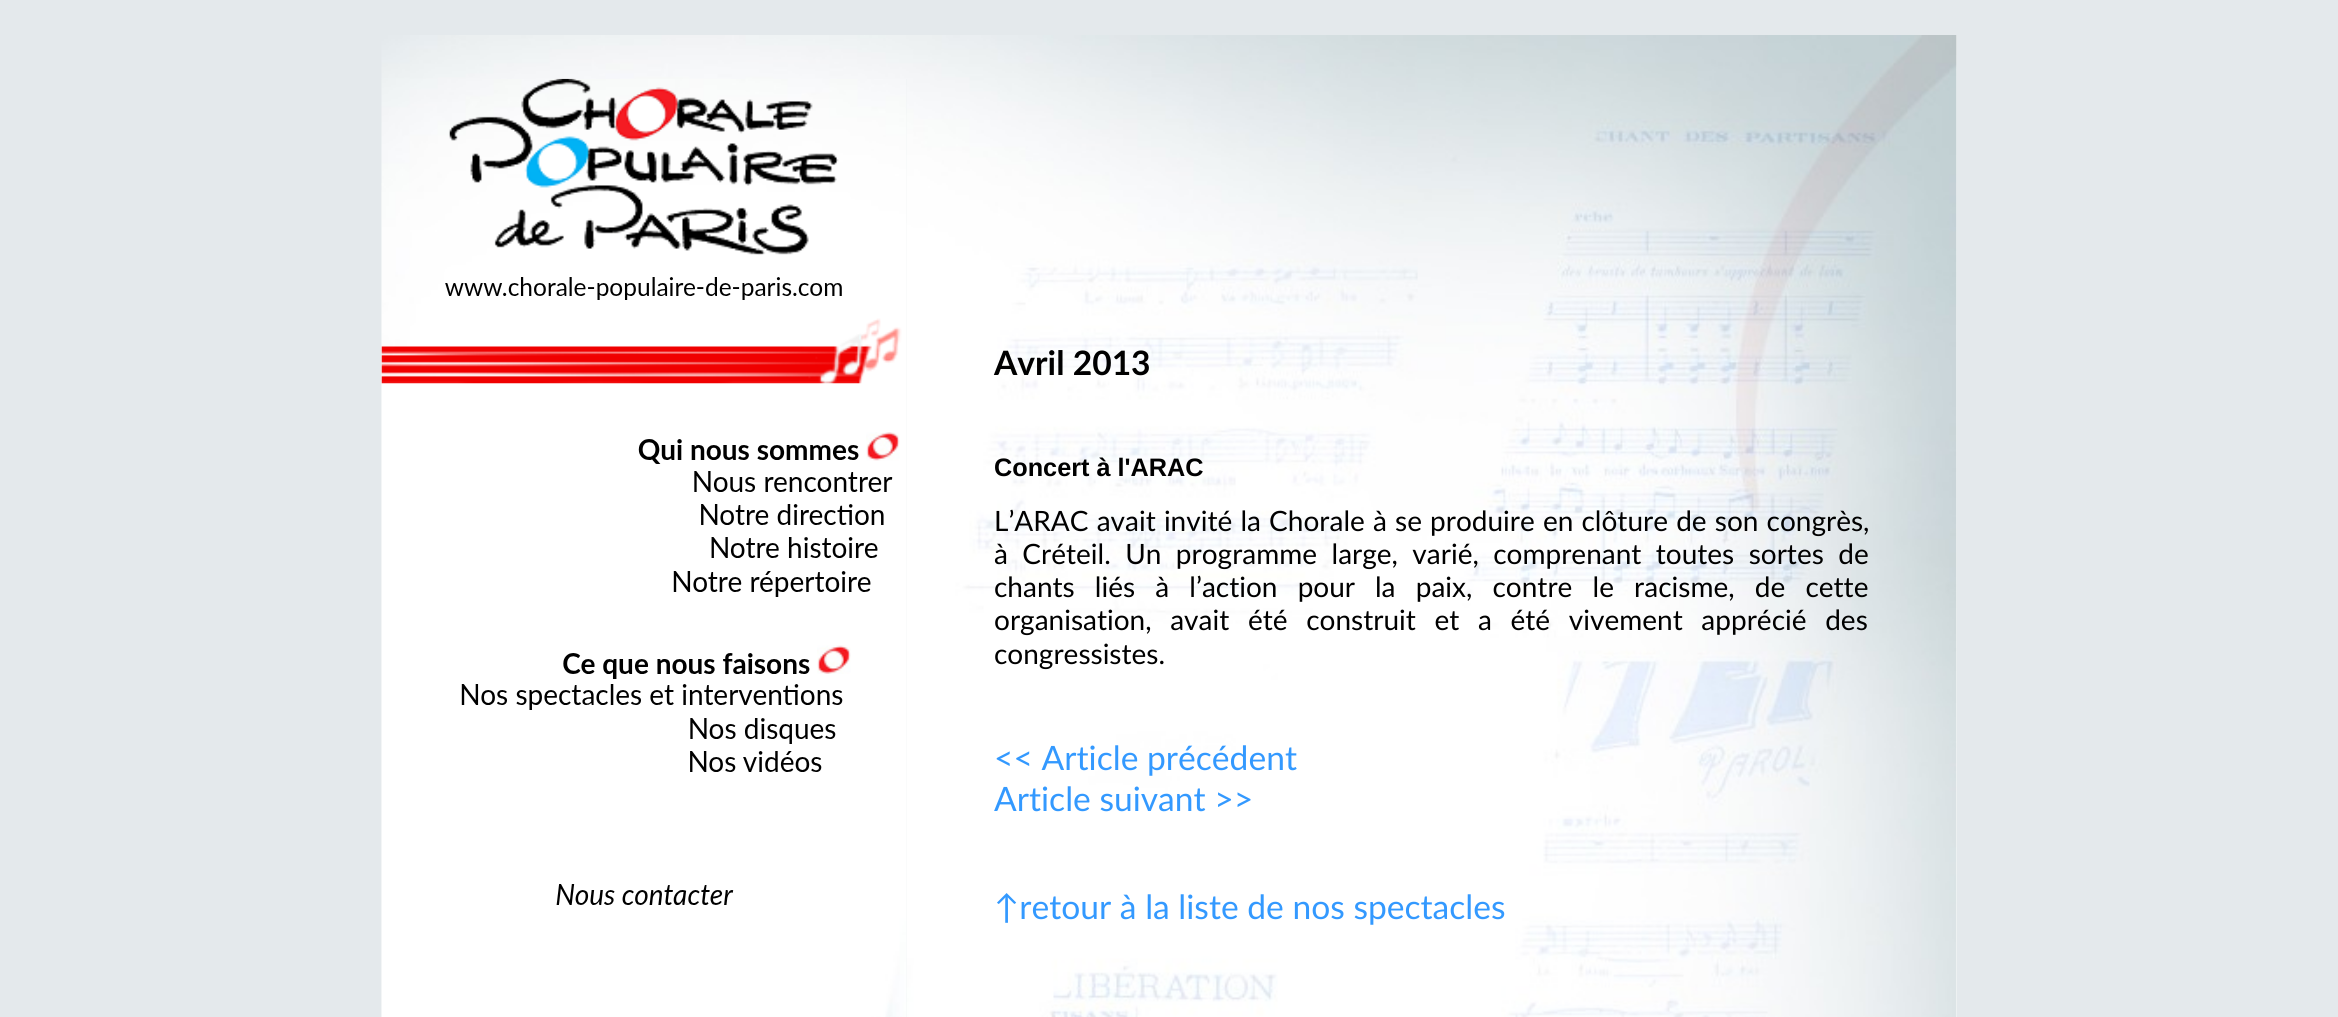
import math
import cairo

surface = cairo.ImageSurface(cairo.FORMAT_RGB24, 2338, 1017)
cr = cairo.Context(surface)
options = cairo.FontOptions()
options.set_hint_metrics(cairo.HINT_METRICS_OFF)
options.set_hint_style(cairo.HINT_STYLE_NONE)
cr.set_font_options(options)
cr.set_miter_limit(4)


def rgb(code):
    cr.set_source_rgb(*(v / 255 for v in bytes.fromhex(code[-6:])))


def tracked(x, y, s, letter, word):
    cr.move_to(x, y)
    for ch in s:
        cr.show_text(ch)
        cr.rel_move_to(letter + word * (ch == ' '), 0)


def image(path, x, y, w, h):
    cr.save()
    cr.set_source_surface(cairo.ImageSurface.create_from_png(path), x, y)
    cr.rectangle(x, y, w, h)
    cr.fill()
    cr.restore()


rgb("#e4e9ec")
cr.paint()
rgb("#ffffff")
cr.rectangle(1956, 35, 1, 982)
cr.fill()
image("img/1.png", 381, 35, 1576, 982)
image("img/2.png", 381, 78, 526, 939)
cr.select_font_face("Lato", cairo.FONT_SLANT_NORMAL, cairo.FONT_WEIGHT_BOLD)
cr.set_font_size(33.6)
rgb("#000000")
cr.move_to(994, 375)
cr.show_text("Avril 2013")
cr.select_font_face("Liberation Sans", cairo.FONT_SLANT_NORMAL, cairo.FONT_WEIGHT_BOLD)
cr.set_font_size(25.25)
cr.move_to(994, 476)
cr.show_text("Concert à l'ARAC")
cr.select_font_face("Lato")
cr.set_font_size(28)
tracked(994, 531, "L’ARAC avait invité la Chorale à se", 0, 1)
tracked(1430, 531, "produire en clôture de son congrès,", 0, 1)
tracked(994, 564, "à Créteil. Un programme large, varié, comprenant toutes sortes de", 0, 7.25)
tracked(994, 597, "chants liés à l’action pour", 0, 13)
tracked(1375, 597, "la paix, contre le racisme, de cette", 0, 13)
tracked(994, 630, "organisation, avait été construit et a été vivement apprécié des", 0, 11.5)
cr.move_to(994, 664)
cr.show_text("congressistes.")
cr.set_font_size(33.6)
rgb("#3399ff")
for x, y, s in [
    (994, 770, "<< Article précédent"),
    (994, 811, "Article suivant >>"),
    (994, 919, "↑retour à la liste de nos spectacles"),
]:
    cr.move_to(x, y)
    cr.show_text(s)
surface.write_to_png("page.png")
